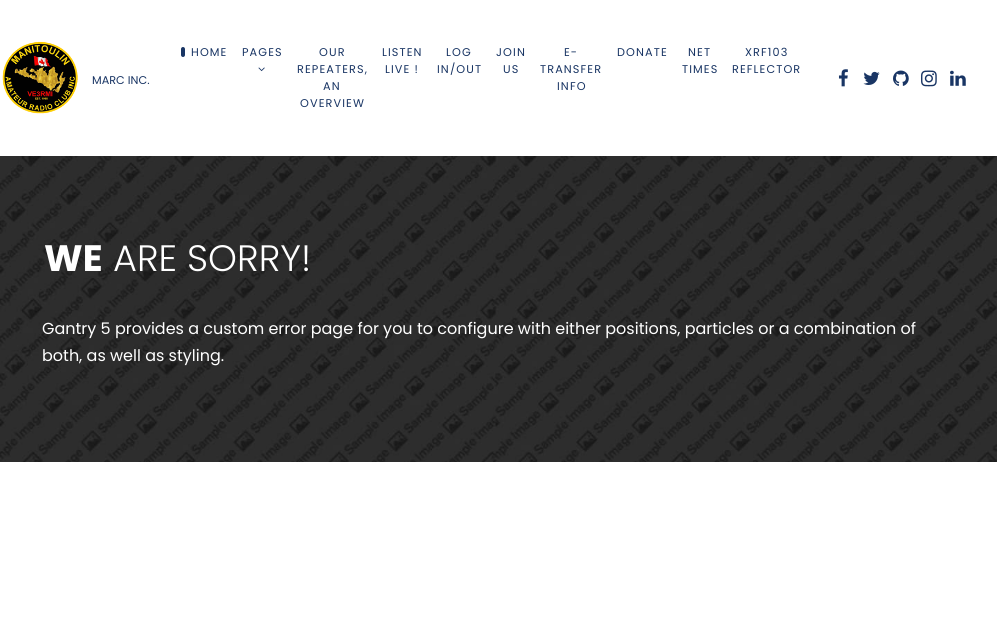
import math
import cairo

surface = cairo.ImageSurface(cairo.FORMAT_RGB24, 997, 639)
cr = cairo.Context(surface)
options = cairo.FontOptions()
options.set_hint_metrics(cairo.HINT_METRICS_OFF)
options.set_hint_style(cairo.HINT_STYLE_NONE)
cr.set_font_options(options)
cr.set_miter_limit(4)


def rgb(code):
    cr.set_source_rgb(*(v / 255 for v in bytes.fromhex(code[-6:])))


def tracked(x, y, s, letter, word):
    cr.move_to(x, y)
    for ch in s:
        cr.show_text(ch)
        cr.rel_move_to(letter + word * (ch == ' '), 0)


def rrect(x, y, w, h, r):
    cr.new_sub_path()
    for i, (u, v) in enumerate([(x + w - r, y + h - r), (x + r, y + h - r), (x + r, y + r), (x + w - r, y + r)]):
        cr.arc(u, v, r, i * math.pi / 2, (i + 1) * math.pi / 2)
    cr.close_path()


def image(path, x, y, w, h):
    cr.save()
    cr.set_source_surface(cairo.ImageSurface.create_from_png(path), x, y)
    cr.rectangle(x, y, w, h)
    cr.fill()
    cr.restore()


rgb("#ffffff")
cr.paint()
image("img/1.png", 2, 41, 76, 73)
rgb("#193564")
rrect(181, 47, 4, 10, 2)
cr.fill()
image("img/2.png", 258, 67, 7, 5)
image("img/3.png", 838, 69, 10, 18)
image("img/4.png", 863, 71, 17, 14)
image("img/5.png", 893, 70, 16, 16)
image("img/6.png", 921, 70, 16, 17)
image("img/7.png", 950, 70, 16, 16)
image("img/8.png", 0, 156, 997, 306)
cr.select_font_face("Poppins")
cr.set_font_size(11.25)
cr.move_to(92, 84)
cr.show_text("MARC INC.")
for x, y, s in [
    (191, 56, "HOME"),
    (242, 56, "PAGES"),
    (319, 56, "OUR"),
    (297, 73, "REPEATERS,"),
    (323, 90, "AN"),
    (300, 107, "OVERVIEW"),
    (382, 56, "LISTEN"),
    (385, 73, "LIVE !"),
    (446, 56, "LOG"),
    (437, 73, "IN/OUT"),
    (496, 56, "JOIN"),
    (503, 73, "US"),
    (564, 56, "E-"),
    (540, 73, "TRANSFER"),
    (557, 90, "INFO"),
    (617, 56, "DONATE"),
    (688, 56, "NET"),
    (682, 73, "TIMES"),
    (745, 56, "XRF103"),
    (732, 73, "REFLECTOR"),
]:
    tracked(x, y, s, 1.1, 0)
cr.select_font_face("Poppins", cairo.FONT_SLANT_NORMAL, cairo.FONT_WEIGHT_BOLD)
cr.set_font_size(36.75)
rgb("#ffffff")
cr.move_to(44, 271)
cr.show_text("WE")
cr.select_font_face("Poppins Light")
cr.move_to(113, 271)
cr.show_text("ARE SORRY!")
cr.select_font_face("Poppins")
cr.set_font_size(16)
cr.move_to(42, 334)
cr.show_text("Gantry 5 provides a custom error page for you to configure with either positions, particles or a combination of")
cr.move_to(42, 361)
cr.show_text("both, as well as styling.")
surface.write_to_png("page.png")
